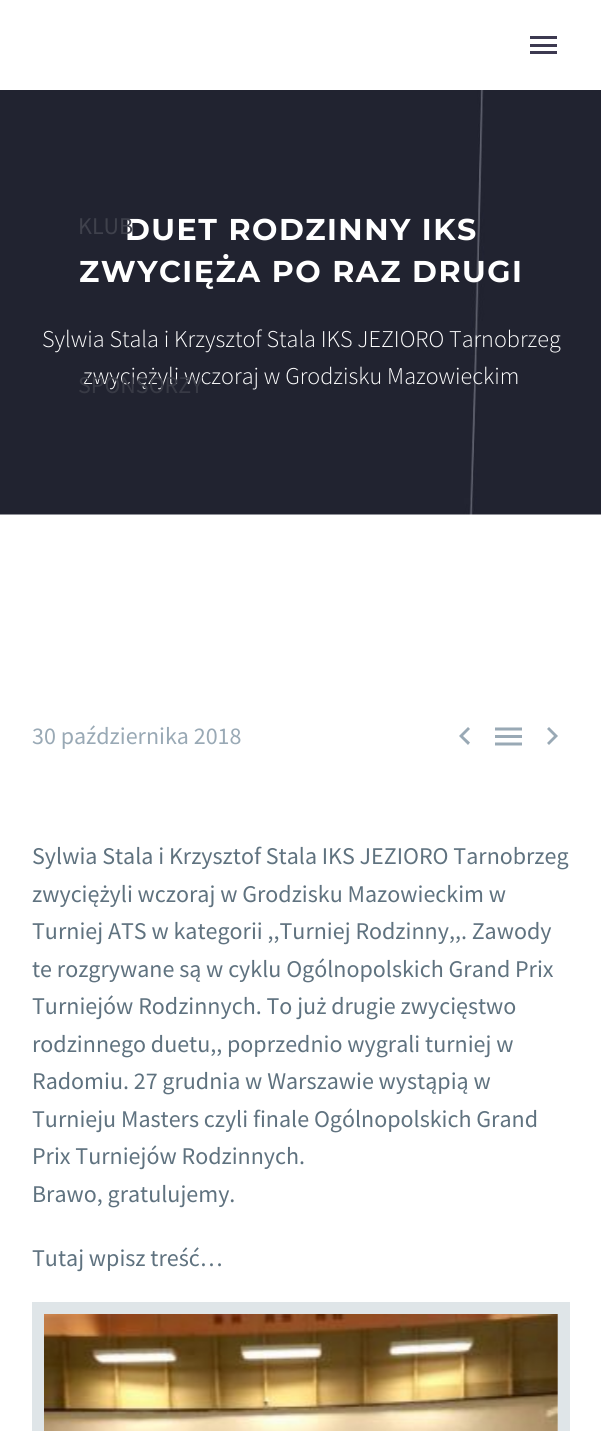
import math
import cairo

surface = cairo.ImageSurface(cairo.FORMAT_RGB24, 601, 1431)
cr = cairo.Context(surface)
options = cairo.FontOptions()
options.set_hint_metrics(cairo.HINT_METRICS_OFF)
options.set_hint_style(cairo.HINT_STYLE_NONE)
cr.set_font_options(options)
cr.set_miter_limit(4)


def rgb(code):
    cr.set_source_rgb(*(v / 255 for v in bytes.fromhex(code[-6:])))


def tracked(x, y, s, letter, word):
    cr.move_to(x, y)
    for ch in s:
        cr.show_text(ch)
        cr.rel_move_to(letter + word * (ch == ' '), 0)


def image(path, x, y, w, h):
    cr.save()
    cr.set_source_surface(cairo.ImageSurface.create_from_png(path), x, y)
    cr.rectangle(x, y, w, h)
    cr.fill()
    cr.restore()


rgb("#ffffff")
cr.paint()
image("img/1.png", 0, 90, 601, 425)
rgb("#99a9b5")
cr.new_path()
cr.move_to(470, 742.5)
cr.line_to(463, 736)
cr.line_to(470, 729)
cr.line_to(468, 727)
cr.line_to(459, 736)
cr.line_to(468, 745)
cr.close_path()
cr.fill()
image("img/2.png", 495, 727, 27, 19)
cr.new_path()
cr.move_to(547, 743)
cr.line_to(554, 736)
cr.line_to(547, 729)
cr.line_to(549, 727)
cr.line_to(558, 736)
cr.line_to(549, 745)
cr.close_path()
cr.fill()
cr.rectangle(38, 1308, 526, 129)
rgb("#dfe5e8")
cr.set_line_width(12)
cr.stroke()
image("img/3.png", 44, 1314, 514, 117)
for x, y, w, h, color in [
    (530, 36, 27, 3, "#3c3950"),
    (530, 44, 27, 3, "#3c3950"),
    (530, 51, 27, 3, "#3c3950"),
]:
    rgb(color)
    cr.rectangle(x, y, w, h)
    cr.fill()
cr.select_font_face("Montserrat", cairo.FONT_SLANT_NORMAL, cairo.FONT_WEIGHT_BOLD)
cr.set_font_size(30.1)
rgb("#ffffff")
tracked(125, 240, "DUET RODZINNY IKS", 1.5, 0)
tracked(79, 282, "ZWYCIĘŻA PO RAZ DRUGI", 1.5, 0)
cr.select_font_face("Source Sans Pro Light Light")
cr.set_font_size(24.1)
cr.move_to(42, 347)
cr.show_text("Sylwia Stala i Krzysztof Stala IKS JEZIORO Tarnobrzeg")
cr.move_to(83, 384)
cr.show_text("zwyciężyli wczoraj w Grodzisku Mazowieckim")
cr.select_font_face("Source Sans Pro")
cr.set_font_size(24)
rgb("#99a9b5")
cr.move_to(32, 744)
cr.show_text("30 października 2018")
rgb("#5f727f")
for x, y, s in [
    (32, 864, "Sylwia Stala i Krzysztof Stala IKS JEZIORO Tarnobrzeg"),
    (32, 902, "zwyciężyli wczoraj w Grodzisku Mazowieckim w"),
    (32, 939, "Turniej ATS w kategorii ,,Turniej Rodzinny,,. Zawody"),
    (32, 977, "te rozgrywane są w cyklu Ogólnopolskich Grand Prix"),
    (32, 1014, "Turniejów Rodzinnych. To już drugie zwycięstwo"),
    (32, 1052, "rodzinnego duetu,, poprzednio wygrali turniej w"),
    (32, 1089, "Radomiu. 27 grudnia w Warszawie wystąpią w"),
    (32, 1127, "Turnieju Masters czyli finale Ogólnopolskich Grand"),
    (32, 1164, "Prix Turniejów Rodzinnych."),
    (32, 1202, "Brawo, gratulujemy."),
    (32, 1266, "Tutaj wpisz treść…"),
]:
    cr.move_to(x, y)
    cr.show_text(s)
rgb("#3f414c")
cr.move_to(78, 234)
cr.show_text("KLUB")
rgb("#383a45")
cr.move_to(78, 393)
cr.show_text("SPONSORZY")
surface.write_to_png("page.png")
